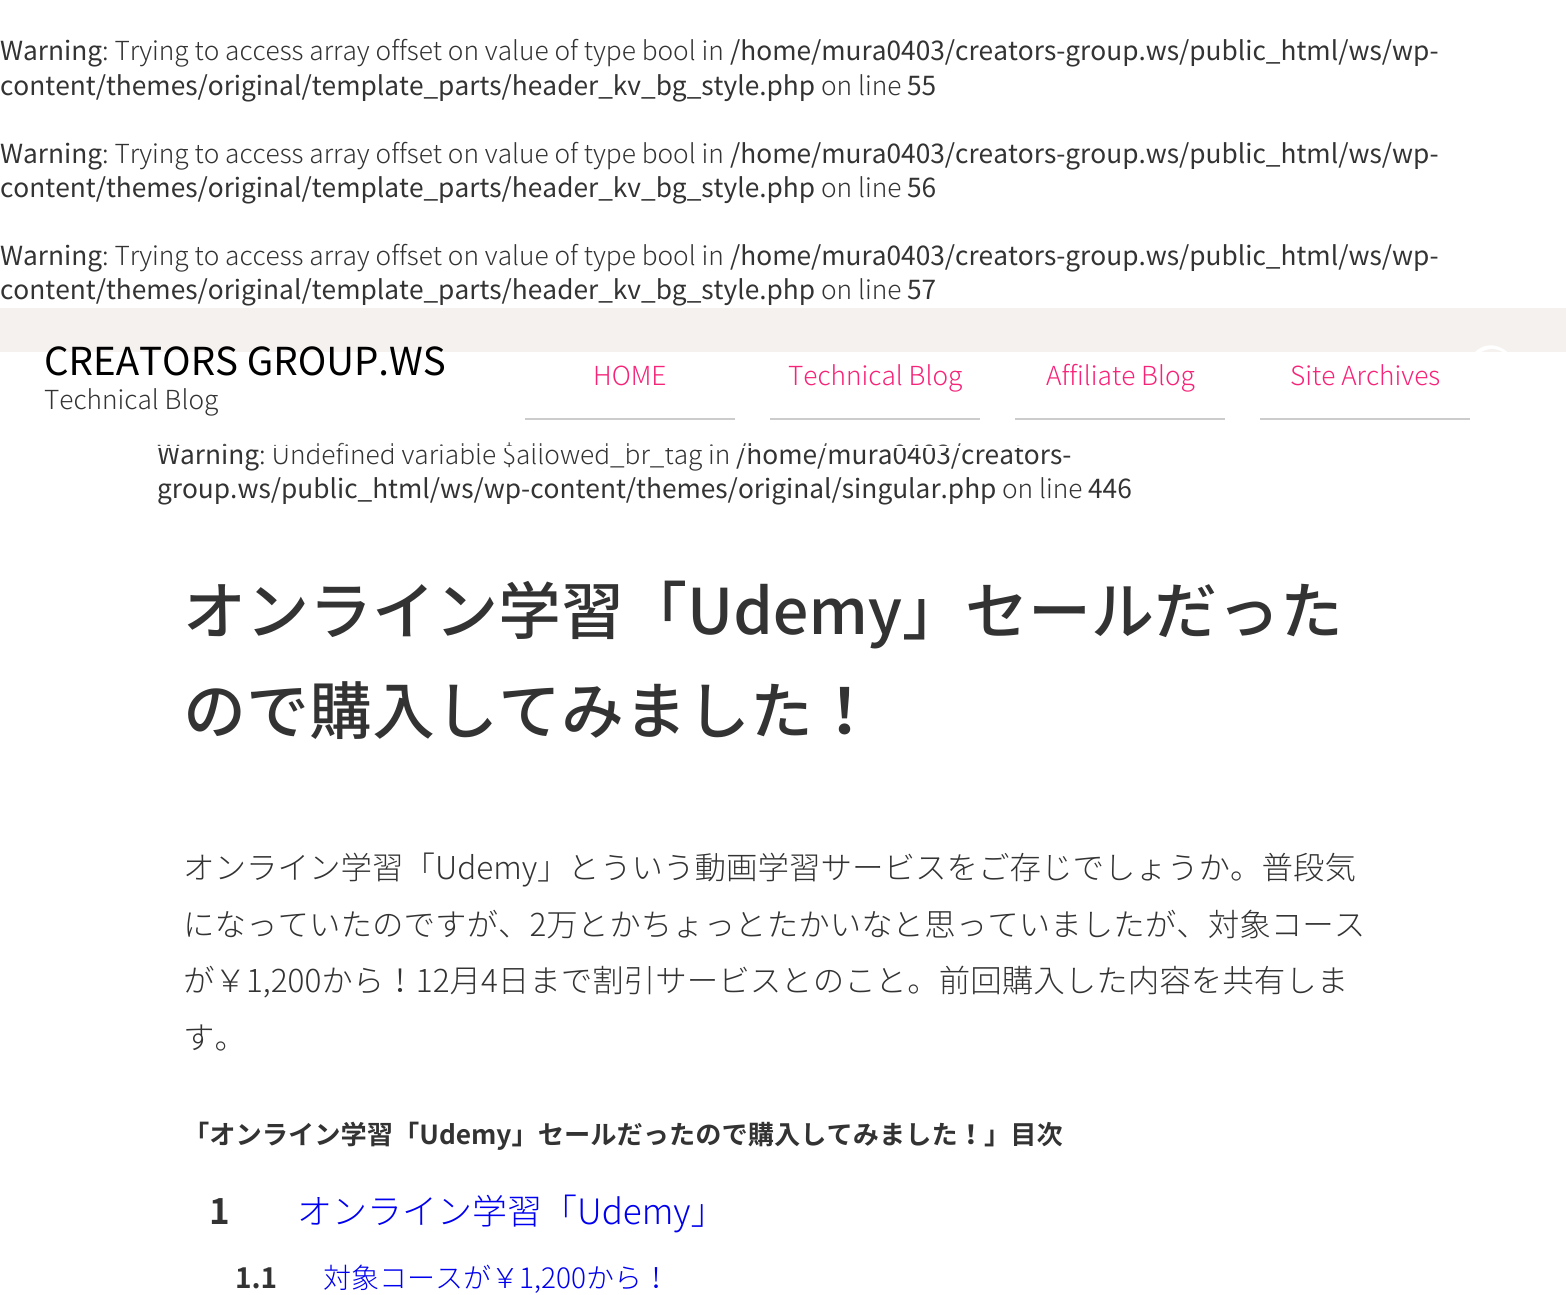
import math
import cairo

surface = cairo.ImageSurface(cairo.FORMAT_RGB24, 1566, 1295)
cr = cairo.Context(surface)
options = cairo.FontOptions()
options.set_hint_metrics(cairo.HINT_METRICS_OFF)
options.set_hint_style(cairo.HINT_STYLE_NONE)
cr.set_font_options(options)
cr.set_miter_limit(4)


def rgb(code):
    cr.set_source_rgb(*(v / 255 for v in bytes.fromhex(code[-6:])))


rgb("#ffffff")
cr.paint()
rgb("#f3eeec")
cr.rectangle(0, 308, 1566, 44)
cr.fill()
cr.select_font_face("Noto Sans JP")
cr.set_font_size(26.25)
rgb("#333333")
cr.move_to(0, 60)
cr.show_text("Warning")
cr.select_font_face("Noto Sans JP Light")
cr.move_to(102, 60)
cr.show_text(": Trying to access array offset on value of type bool in")
cr.select_font_face("Noto Sans JP")
cr.move_to(730, 60)
cr.show_text("/home/mura0403/creators-group.ws/public_html/ws/wp-")
cr.move_to(0, 95)
cr.show_text("content/themes/original/template_parts/header_kv_bg_style.php")
cr.select_font_face("Noto Sans JP Light")
cr.move_to(821, 95)
cr.show_text("on line")
cr.select_font_face("Noto Sans JP")
cr.move_to(907, 95)
cr.show_text("55")
cr.move_to(0, 163)
cr.show_text("Warning")
cr.select_font_face("Noto Sans JP Light")
cr.move_to(102, 163)
cr.show_text(": Trying to access array offset on value of type bool in")
cr.select_font_face("Noto Sans JP")
cr.move_to(730, 163)
cr.show_text("/home/mura0403/creators-group.ws/public_html/ws/wp-")
cr.move_to(0, 197)
cr.show_text("content/themes/original/template_parts/header_kv_bg_style.php")
cr.select_font_face("Noto Sans JP Light")
cr.move_to(821, 197)
cr.show_text("on line")
cr.select_font_face("Noto Sans JP")
cr.move_to(907, 197)
cr.show_text("56")
cr.move_to(0, 265)
cr.show_text("Warning")
cr.select_font_face("Noto Sans JP Light")
cr.move_to(102, 265)
cr.show_text(": Trying to access array offset on value of type bool in")
cr.select_font_face("Noto Sans JP")
cr.move_to(730, 265)
cr.show_text("/home/mura0403/creators-group.ws/public_html/ws/wp-")
cr.move_to(0, 299)
cr.show_text("content/themes/original/template_parts/header_kv_bg_style.php")
cr.select_font_face("Noto Sans JP Light")
cr.move_to(821, 299)
cr.show_text("on line")
cr.select_font_face("Noto Sans JP")
cr.move_to(907, 299)
cr.show_text("57")
cr.move_to(157, 464)
cr.show_text("Warning")
cr.select_font_face("Noto Sans JP Light")
cr.move_to(259, 464)
cr.show_text(": Undefined variable $allowed_br_tag in")
cr.select_font_face("Noto Sans JP")
cr.move_to(736, 464)
cr.show_text("/home/mura0403/creators-")
cr.set_source_rgba(1, 1, 1, 0.15)
cr.rectangle(0, 308, 1566, 138)
cr.fill()
rgb("#ffffff")
cr.new_path()
cr.move_to(1527, 403)
cr.line_to(1528, 404)
cr.line_to(1526, 406)
cr.curve_to(1524, 408, 1520, 402, 1519, 401)
cr.line_to(1511, 393)
cr.curve_to(1509, 391, 1508, 391, 1508, 389)
cr.curve_to(1485, 410, 1451, 375, 1474, 353)
cr.curve_to(1496, 330, 1531, 364, 1510, 387)
cr.curve_to(1513, 387, 1515, 390, 1517, 393)
cr.close_path()
cr.move_to(1476, 385)
cr.curve_to(1496, 405, 1526, 375, 1506, 355)
cr.curve_to(1487, 336, 1457, 366, 1476, 385)
cr.close_path()
cr.fill()
cr.select_font_face("Noto Sans JP Light")
rgb("#333333")
cr.move_to(44, 409)
cr.show_text("Technical Blog")
cr.select_font_face("Noto Sans JP")
cr.set_font_size(38.5)
rgb("#000000")
cr.move_to(44, 375)
cr.show_text("CREATORS GROUP.WS")
cr.select_font_face("Noto Sans JP Light")
cr.set_font_size(26.25)
rgb("#f62479")
cr.move_to(1290, 385)
cr.show_text("Site Archives")
rgb("#cccccc")
cr.rectangle(1260, 418, 210, 2)
cr.fill()
rgb("#f62479")
cr.move_to(1046, 385)
cr.show_text("Affiliate Blog")
rgb("#cccccc")
cr.rectangle(1015, 418, 210, 2)
cr.fill()
rgb("#f62479")
cr.move_to(788, 385)
cr.show_text("Technical Blog")
rgb("#cccccc")
cr.rectangle(770, 418, 210, 2)
cr.fill()
rgb("#f62479")
cr.move_to(593, 385)
cr.show_text("HOME")
rgb("#cccccc")
cr.rectangle(525, 418, 210, 2)
cr.fill()
rgb("#ffffff")
cr.rectangle(157, 446, 863, 2)
cr.fill()
cr.select_font_face("Noto Sans JP")
rgb("#333333")
cr.move_to(157, 498)
cr.show_text("group.ws/public_html/ws/wp-content/themes/original/singular.php")
cr.select_font_face("Noto Sans JP Light")
cr.move_to(1002, 498)
cr.show_text("on line")
cr.select_font_face("Noto Sans JP")
cr.move_to(1088, 498)
cr.show_text("446")
cr.select_font_face("Noto Sans JP Medium")
cr.set_font_size(63)
cr.move_to(183, 634)
cr.show_text("オンライン学習「Udemy」セールだった")
cr.move_to(183, 734)
cr.show_text("ので購入してみました！")
cr.select_font_face("Noto Sans JP Light")
cr.set_font_size(31.5)
for x, y, s in [
    (183, 879, "オンライン学習「Udemy」とういう動画学習サービスをご存じでしょうか。普段気"),
    (183, 936, "になっていたのですが、2万とかちょっとたかいなと思っていましたが、対象コース"),
    (183, 992, "が￥1,200から！12月4日まで割引サービスとのこと。前回購入した内容を共有しま"),
    (183, 1049, "す。"),
]:
    cr.move_to(x, y)
    cr.show_text(s)
cr.select_font_face("Noto Sans JP", cairo.FONT_SLANT_NORMAL, cairo.FONT_WEIGHT_BOLD)
cr.set_font_size(26.25)
cr.move_to(183, 1144)
cr.show_text("「オンライン学習「Udemy」セールだったので購入してみました！」目次")
cr.set_font_size(35)
cr.move_to(209, 1224)
cr.show_text("1")
cr.select_font_face("Noto Sans JP Light")
rgb("#0000ee")
cr.move_to(297, 1224)
cr.show_text("オンライン学習「Udemy」")
cr.select_font_face("Noto Sans JP", cairo.FONT_SLANT_NORMAL, cairo.FONT_WEIGHT_BOLD)
cr.set_font_size(28)
rgb("#333333")
cr.move_to(235, 1288)
cr.show_text("1.1")
cr.select_font_face("Noto Sans JP Light")
rgb("#0000ee")
cr.move_to(323, 1288)
cr.show_text("対象コースが￥1,200から！")
surface.write_to_png("page.png")
